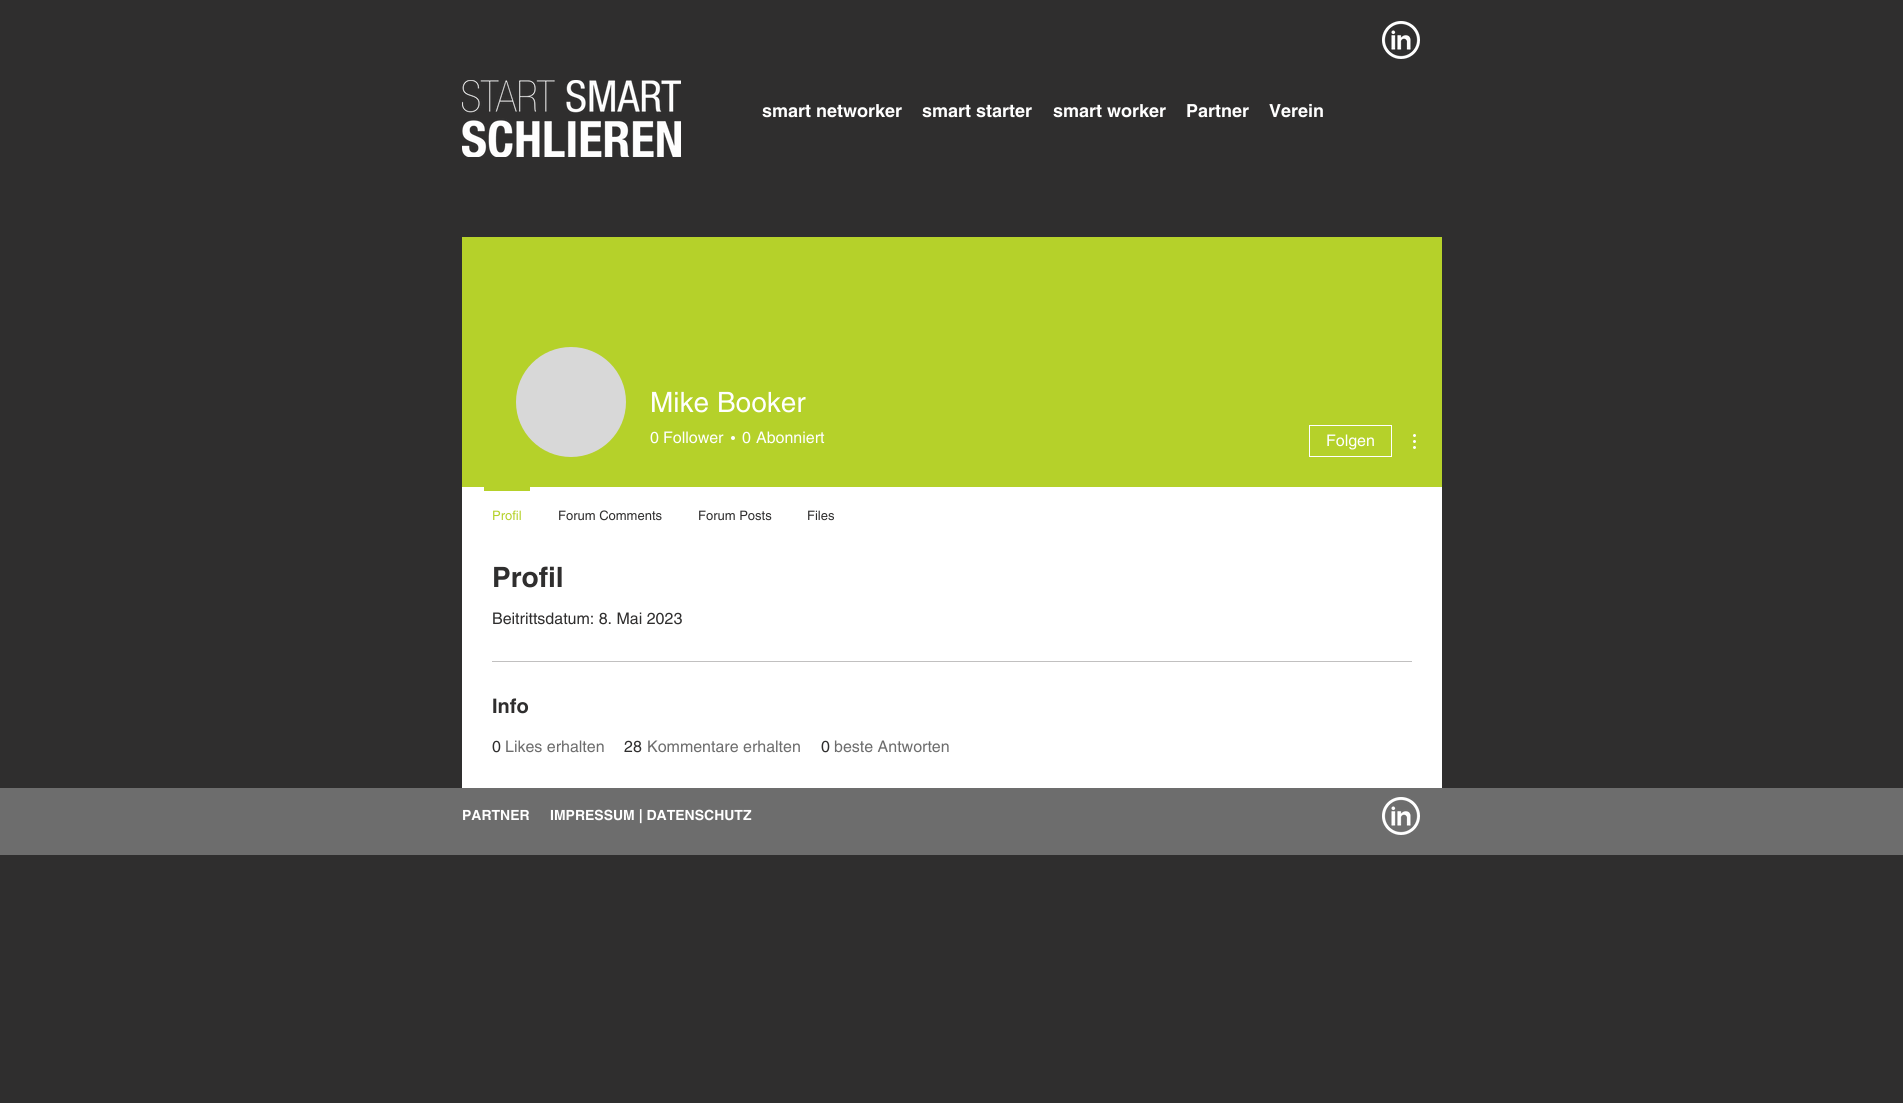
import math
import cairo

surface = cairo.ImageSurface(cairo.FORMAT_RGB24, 1903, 1103)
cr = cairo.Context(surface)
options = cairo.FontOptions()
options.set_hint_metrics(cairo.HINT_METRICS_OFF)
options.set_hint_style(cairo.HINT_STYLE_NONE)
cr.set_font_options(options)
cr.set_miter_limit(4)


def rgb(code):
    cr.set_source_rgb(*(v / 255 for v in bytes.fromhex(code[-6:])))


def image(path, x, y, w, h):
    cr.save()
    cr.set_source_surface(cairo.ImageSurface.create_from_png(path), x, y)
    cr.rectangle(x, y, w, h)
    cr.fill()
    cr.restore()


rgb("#2f2e2e")
cr.paint()
image("img/1.png", 1382, 21, 38, 38)
image("img/2.png", 462, 80, 219, 77)
rgb("#b5d12a")
cr.rectangle(462, 237, 980, 250)
cr.fill()
rgb("#d8d8d8")
cr.arc(571, 402, 55, 0, 2 * math.pi)
cr.fill()
rgb("#ffffff")
cr.arc(733, 438, 2, 0, 2 * math.pi)
cr.fill()
cr.rectangle(1309.5, 425.5, 82, 31)
cr.set_line_width(1)
cr.stroke()
image("img/3.png", 1413, 434, 3, 15)
for x, y, w, h, color in [
    (462, 487, 980, 301, "#ffffff"),
    (484, 487, 46, 4, "#b5d12a"),
    (492, 661, 920, 1, "#c1c0c0"),
    (0, 788, 1903, 67, "#6d6d6d"),
]:
    rgb(color)
    cr.rectangle(x, y, w, h)
    cr.fill()
image("img/4.png", 1382, 797, 38, 38)
cr.select_font_face("helvetica", cairo.FONT_SLANT_NORMAL, cairo.FONT_WEIGHT_BOLD)
cr.set_font_size(18)
rgb("#ffffff")
for x, y, s in [
    (762, 117, "smart networker"),
    (922, 117, "smart starter"),
    (1053, 117, "smart worker"),
    (1186, 117, "Partner"),
    (1269, 117, "Verein"),
]:
    cr.move_to(x, y)
    cr.show_text(s)
cr.select_font_face("helvetica")
cr.set_font_size(28)
cr.move_to(650, 412)
cr.show_text("Mike Booker")
cr.set_font_size(16)
for x, y, s in [
    (650, 443, "0"),
    (663, 443, "Follower"),
    (742, 443, "0"),
    (756, 443, "Abonniert"),
    (1326, 446, "Folgen"),
]:
    cr.move_to(x, y)
    cr.show_text(s)
cr.set_font_size(13)
rgb("#b5d12a")
cr.move_to(492, 520)
cr.show_text("Profil")
rgb("#2f2e2e")
for x, y, s in [
    (558, 520, "Forum Comments"),
    (698, 520, "Forum Posts"),
    (807, 520, "Files"),
]:
    cr.move_to(x, y)
    cr.show_text(s)
cr.select_font_face("helvetica", cairo.FONT_SLANT_NORMAL, cairo.FONT_WEIGHT_BOLD)
cr.set_font_size(28)
cr.move_to(492, 587)
cr.show_text("Profil")
cr.select_font_face("helvetica")
cr.set_font_size(16)
cr.move_to(492, 624)
cr.show_text("Beitrittsdatum: 8. Mai 2023")
cr.select_font_face("helvetica", cairo.FONT_SLANT_NORMAL, cairo.FONT_WEIGHT_BOLD)
cr.set_font_size(20)
cr.move_to(492, 713)
cr.show_text("Info")
cr.select_font_face("helvetica")
cr.set_font_size(16)
cr.move_to(492, 752)
cr.show_text("0")
rgb("#6d6d6d")
cr.move_to(505, 752)
cr.show_text("Likes erhalten")
rgb("#2f2e2e")
cr.move_to(624, 752)
cr.show_text("28")
rgb("#6d6d6d")
cr.move_to(647, 752)
cr.show_text("Kommentare erhalten")
rgb("#2f2e2e")
cr.move_to(821, 752)
cr.show_text("0")
rgb("#6d6d6d")
cr.move_to(834, 752)
cr.show_text("beste Antworten")
cr.select_font_face("helvetica", cairo.FONT_SLANT_NORMAL, cairo.FONT_WEIGHT_BOLD)
cr.set_font_size(14)
rgb("#ffffff")
cr.move_to(462, 820)
cr.show_text("PARTNER")
cr.move_to(550, 820)
cr.show_text("IMPRESSUM | DATENSCHUTZ")
surface.write_to_png("page.png")
